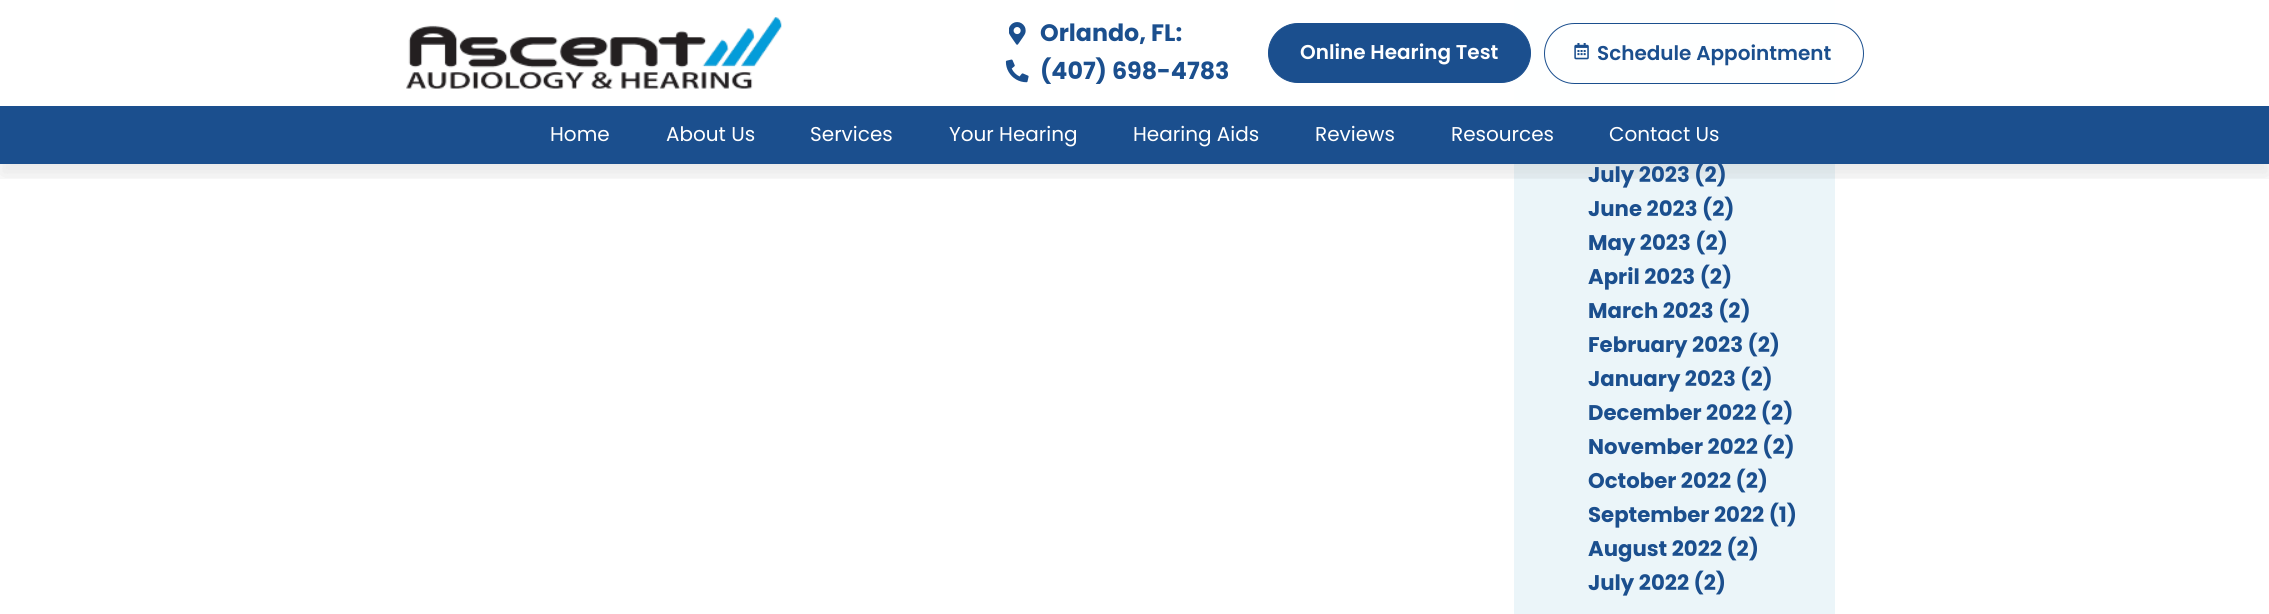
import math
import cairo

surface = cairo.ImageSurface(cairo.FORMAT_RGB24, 2269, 614)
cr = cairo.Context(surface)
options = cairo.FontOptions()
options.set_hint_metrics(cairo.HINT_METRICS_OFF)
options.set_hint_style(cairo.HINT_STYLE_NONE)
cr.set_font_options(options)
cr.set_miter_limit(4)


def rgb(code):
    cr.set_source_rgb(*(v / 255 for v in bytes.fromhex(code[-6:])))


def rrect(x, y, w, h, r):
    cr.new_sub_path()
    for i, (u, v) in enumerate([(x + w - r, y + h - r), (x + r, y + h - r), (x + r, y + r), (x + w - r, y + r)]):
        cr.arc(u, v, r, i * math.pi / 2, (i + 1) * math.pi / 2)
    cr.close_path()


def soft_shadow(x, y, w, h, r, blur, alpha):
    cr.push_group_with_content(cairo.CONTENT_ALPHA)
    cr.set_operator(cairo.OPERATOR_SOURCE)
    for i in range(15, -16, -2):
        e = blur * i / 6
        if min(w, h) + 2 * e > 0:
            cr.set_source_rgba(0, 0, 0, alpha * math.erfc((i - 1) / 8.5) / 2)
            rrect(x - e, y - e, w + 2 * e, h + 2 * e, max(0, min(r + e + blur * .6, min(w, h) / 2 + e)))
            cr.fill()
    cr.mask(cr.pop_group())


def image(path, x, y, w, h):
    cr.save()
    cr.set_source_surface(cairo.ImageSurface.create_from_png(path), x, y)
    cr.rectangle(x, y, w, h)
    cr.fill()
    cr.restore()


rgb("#ffffff")
cr.paint()
rgb("#ebf5f9")
cr.rectangle(1514, 0, 321, 614)
cr.fill()
cr.save()
cr.rectangle(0, 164, 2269, 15)
cr.clip()
rgb("#000000")
soft_shadow(0, 13, 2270, 163, 0, 12.5, 0.05)
cr.restore()
cr.set_source_rgba(1, 1, 1, 0.95)
cr.rectangle(1514, 0, 321, 106)
cr.fill()
cr.save()
cr.rectangle(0, 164, 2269, 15)
cr.clip()
rgb("#000000")
soft_shadow(0, 13, 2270, 163, 0, 12.5, 0.05)
cr.restore()
image("img/1.png", 406, 17, 376, 72)
image("img/2.png", 1009, 22, 17, 23)
image("img/3.png", 1005, 59, 24, 24)
rgb("#1b4f8e")
rrect(1268.5, 23.5, 262, 59, 29.5)
cr.fill_preserve()
cr.set_line_width(1)
cr.stroke()
rrect(1544.5, 23.5, 319, 60, 30)
cr.stroke()
image("img/4.png", 1574, 43, 15, 17)
cr.rectangle(0, 106, 2269, 58)
cr.fill()
cr.select_font_face("Poppins", cairo.FONT_SLANT_NORMAL, cairo.FONT_WEIGHT_BOLD)
cr.set_font_size(23.75)
cr.move_to(1040, 41)
cr.show_text("Orlando, FL:")
cr.move_to(1040, 79)
cr.show_text("(407) 698-4783")
cr.select_font_face("Poppins SemiBold")
cr.set_font_size(20)
rgb("#ffffff")
cr.move_to(1300, 59)
cr.show_text("Online Hearing Test")
rgb("#1b4f8e")
cr.move_to(1597, 60)
cr.show_text("Schedule Appointment")
cr.select_font_face("Poppins")
rgb("#ffffff")
for x, y, s in [
    (550, 141, "Home"),
    (666, 141, "About Us"),
    (810, 141, "Services"),
    (949, 141, "Your Hearing"),
    (1133, 141, "Hearing Aids"),
    (1315, 141, "Reviews"),
    (1451, 141, "Resources"),
    (1609, 141, "Contact Us"),
]:
    cr.move_to(x, y)
    cr.show_text(s)
cr.select_font_face("Poppins", cairo.FONT_SLANT_NORMAL, cairo.FONT_WEIGHT_BOLD)
cr.set_font_size(21.25)
rgb("#1b4f8e")
for x, y, s in [
    (1588, 182, "July 2023 (2)"),
    (1588, 216, "June 2023 (2)"),
    (1588, 250, "May 2023 (2)"),
    (1588, 284, "April 2023 (2)"),
    (1588, 318, "March 2023 (2)"),
    (1588, 352, "February 2023 (2)"),
    (1588, 386, "January 2023 (2)"),
    (1588, 420, "December 2022 (2)"),
    (1588, 454, "November 2022 (2)"),
    (1588, 488, "October 2022 (2)"),
    (1588, 522, "September 2022 (1)"),
    (1588, 556, "August 2022 (2)"),
    (1588, 590, "July 2022 (2)"),
]:
    cr.move_to(x, y)
    cr.show_text(s)
surface.write_to_png("page.png")
